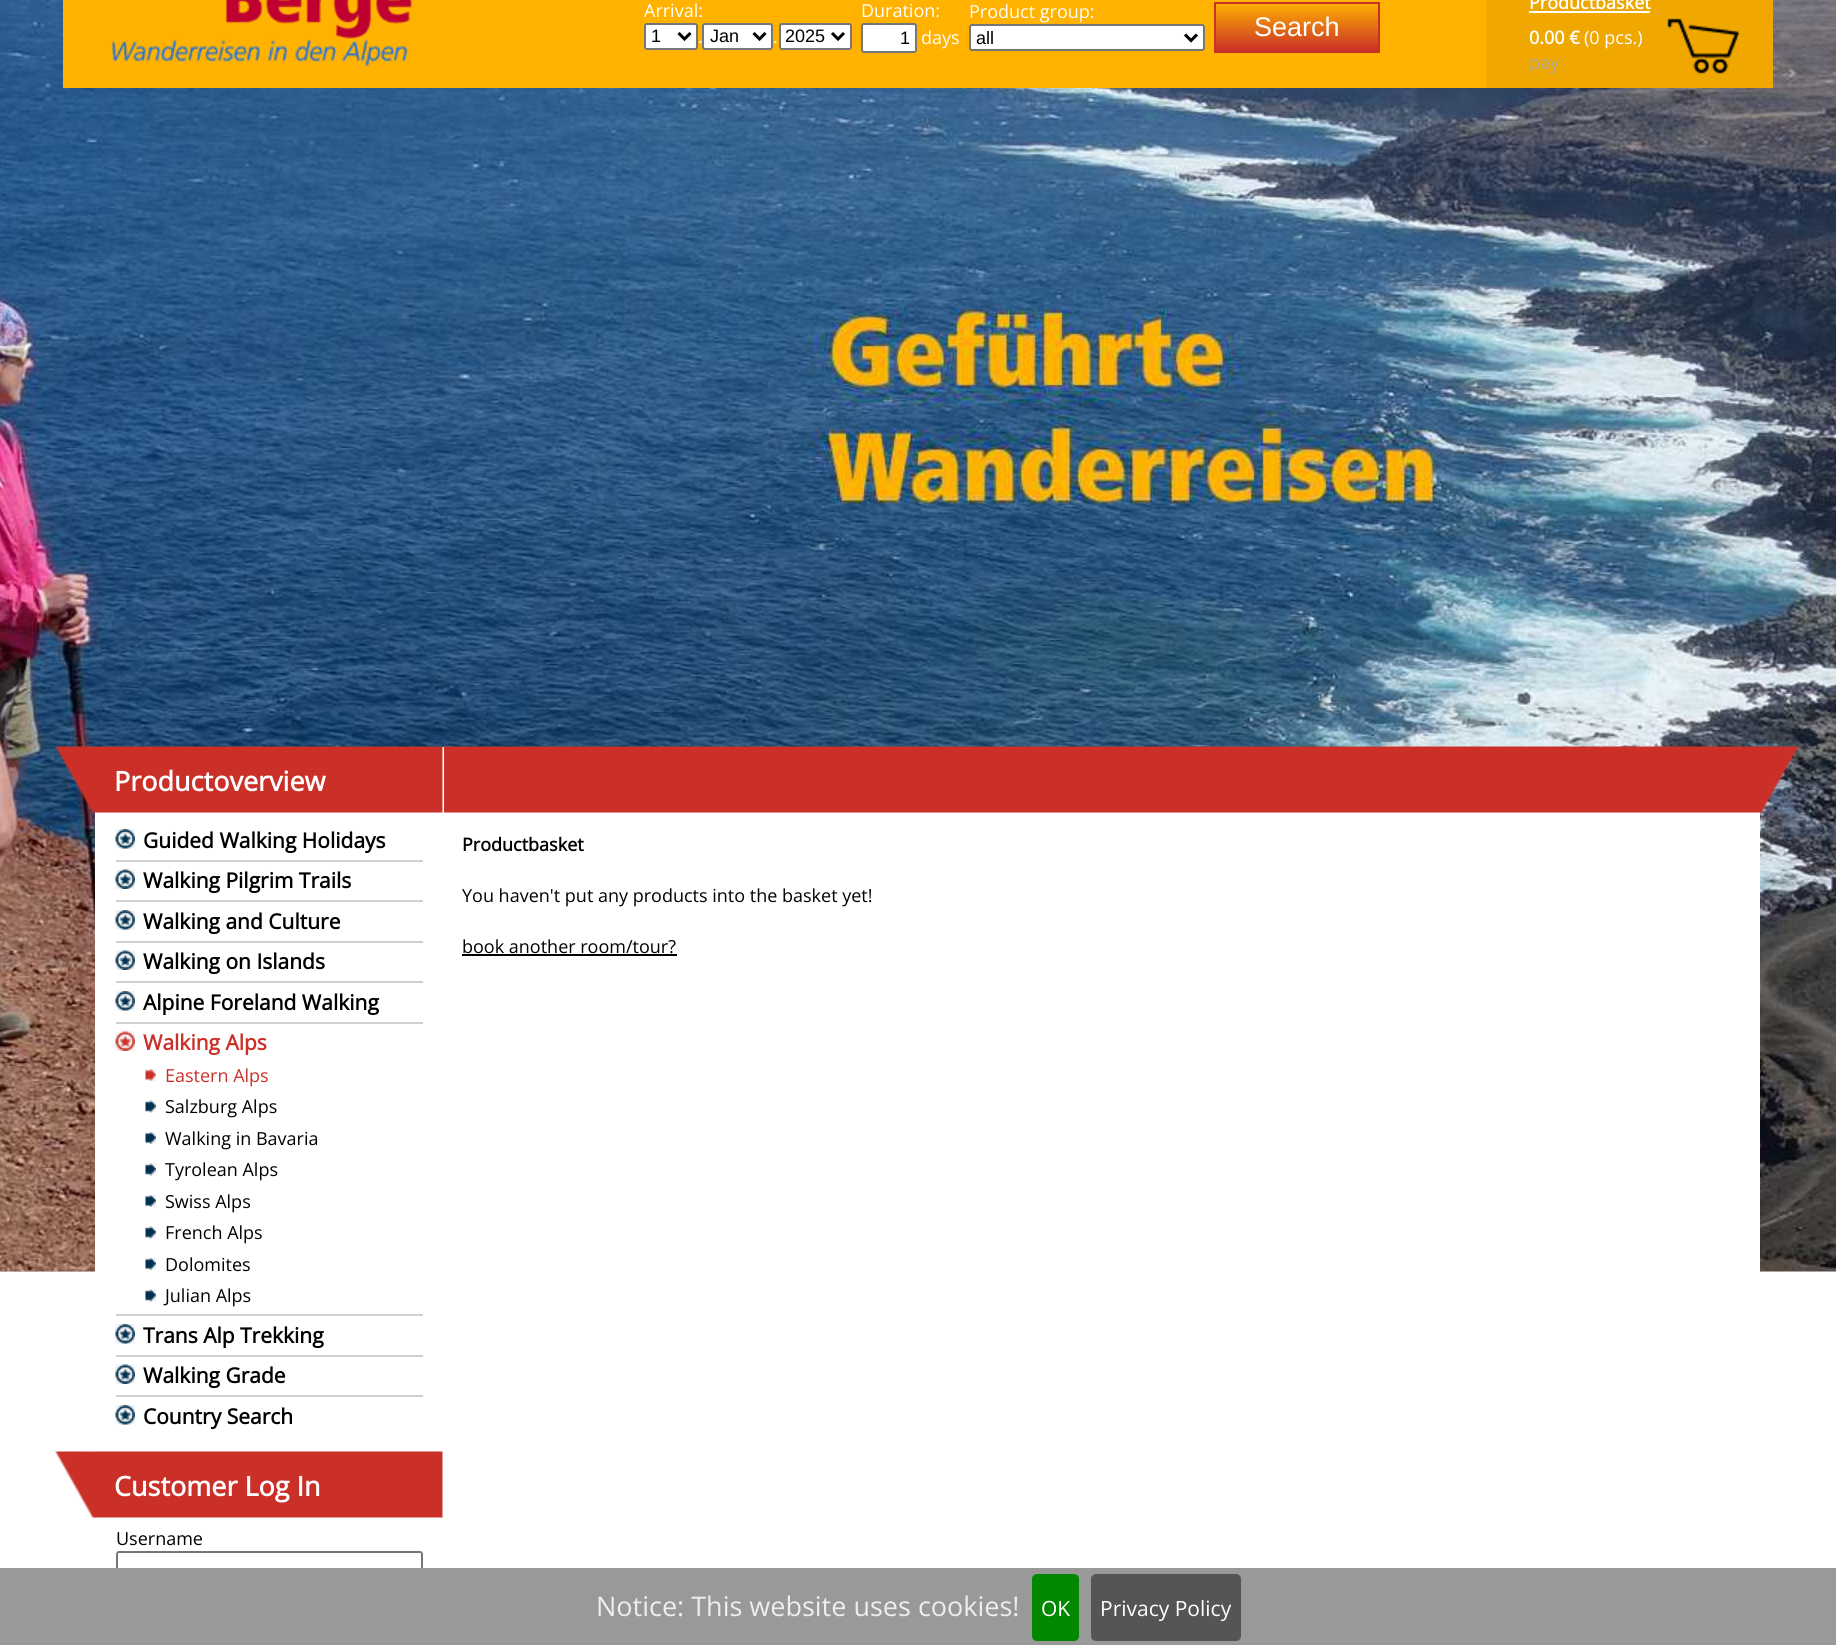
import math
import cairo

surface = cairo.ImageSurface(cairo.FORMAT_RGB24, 1836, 1645)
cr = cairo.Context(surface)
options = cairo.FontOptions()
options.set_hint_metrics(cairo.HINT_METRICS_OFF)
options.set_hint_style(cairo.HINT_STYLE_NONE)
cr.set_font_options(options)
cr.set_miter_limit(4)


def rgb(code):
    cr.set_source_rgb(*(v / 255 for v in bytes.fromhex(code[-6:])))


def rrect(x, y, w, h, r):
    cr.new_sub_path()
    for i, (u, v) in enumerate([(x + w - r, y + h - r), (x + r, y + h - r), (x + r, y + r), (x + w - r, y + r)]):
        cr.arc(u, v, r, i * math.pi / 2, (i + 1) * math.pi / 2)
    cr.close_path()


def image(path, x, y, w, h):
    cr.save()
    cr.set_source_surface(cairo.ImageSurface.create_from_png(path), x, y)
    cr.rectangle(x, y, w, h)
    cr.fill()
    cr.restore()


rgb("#ffffff")
cr.paint()
rgb("#c0c0c0")
cr.rectangle(0, 1271, 1836, 1)
cr.fill()
image("img/1.png", 0, 0, 1836, 1272)
image("img/2.png", 63, 0, 1710, 88)
rgb("#ffffff")
rrect(645, 24, 52, 25, 2)
cr.fill_preserve()
rgb("#767676")
cr.stroke()
cr.new_path()
cr.move_to(678.5, 33)
cr.line_to(684.5, 39)
cr.line_to(690.5, 33)
rgb("#000000")
cr.set_line_width(3)
cr.stroke()
rgb("#ffffff")
rrect(703, 24, 69, 25, 2)
cr.fill_preserve()
rgb("#767676")
cr.set_line_width(2)
cr.stroke()
cr.new_path()
cr.move_to(753.5, 33)
cr.line_to(759.5, 39)
cr.line_to(765.5, 33)
rgb("#000000")
cr.set_line_width(3)
cr.stroke()
rgb("#ffffff")
rrect(780, 24, 71, 25, 2)
cr.fill_preserve()
rgb("#767676")
cr.set_line_width(2)
cr.stroke()
cr.new_path()
cr.move_to(832, 33)
cr.line_to(838, 39)
cr.line_to(844, 33)
rgb("#000000")
cr.set_line_width(3)
cr.stroke()
rgb("#ffffff")
rrect(862, 24, 54, 28, 2)
cr.fill_preserve()
rgb("#767676")
cr.set_line_width(2)
cr.stroke()
rgb("#ffffff")
rrect(970, 25, 234, 25, 2)
cr.fill_preserve()
rgb("#767676")
cr.stroke()
cr.new_path()
cr.move_to(1185, 34.5)
cr.line_to(1191, 40.5)
cr.line_to(1197, 34.5)
rgb("#000000")
cr.set_line_width(3)
cr.stroke()
gradient = cairo.LinearGradient(1297, 3, 1297, 51)
gradient.add_color_stop_rgba(0, 0.996, 0.69, 0.004, 1)
gradient.add_color_stop_rgba(1, 0.792, 0.188, 0.157, 1)
cr.set_source(gradient)
cr.rectangle(1216, 4, 162, 47)
cr.fill()
cr.rectangle(1215, 3, 164, 49)
rgb("#ca3028")
cr.set_line_width(2)
cr.stroke()
rgb("#ffffff")
cr.rectangle(1529, 11, 121, 2)
cr.fill()
cr.rectangle(95, 747, 349, 525)
cr.fill()
image("img/3.png", 55, 746, 388, 67)
image("img/4.png", 115, 829, 20, 20)
rgb("#d0d0d0")
cr.rectangle(116, 860, 307, 2)
cr.fill()
image("img/5.png", 115, 869, 20, 20)
cr.rectangle(116, 900, 307, 2)
cr.fill()
image("img/4.png", 115, 910, 20, 20)
cr.rectangle(116, 941, 307, 2)
cr.fill()
image("img/5.png", 115, 950, 20, 20)
cr.rectangle(116, 981, 307, 2)
cr.fill()
image("img/4.png", 115, 991, 20, 20)
cr.rectangle(116, 1022, 307, 2)
cr.fill()
image("img/6.png", 115, 1031, 20, 20)
image("img/7.png", 145, 1069, 11, 12)
image("img/8.png", 145, 1100, 11, 13)
image("img/9.png", 145, 1132, 11, 12)
image("img/8.png", 145, 1163, 11, 13)
image("img/9.png", 145, 1195, 11, 12)
image("img/8.png", 145, 1226, 11, 13)
image("img/9.png", 145, 1258, 11, 12)
image("img/8.png", 145, 1289, 11, 13)
cr.rectangle(116, 1314, 307, 2)
cr.fill()
image("img/4.png", 115, 1324, 20, 20)
cr.rectangle(116, 1355, 307, 2)
cr.fill()
image("img/5.png", 115, 1364, 20, 20)
cr.rectangle(116, 1395, 307, 2)
cr.fill()
image("img/4.png", 115, 1405, 20, 20)
image("img/10.png", 55, 1451, 388, 67)
rrect(117, 1552, 305, 28, 2)
rgb("#767676")
cr.stroke()
rgb("#ffffff")
cr.rectangle(444, 812, 1316, 460)
cr.fill()
image("img/11.png", 444, 746, 1355, 67)
rgb("#000000")
cr.rectangle(462, 954, 215, 2)
cr.fill()
rgb("#999999")
cr.rectangle(0, 1568, 1836, 77)
cr.fill()
rgb("#008800")
rrect(1032, 1574, 47, 67, 5)
cr.fill()
rgb("#555555")
rrect(1091, 1574, 150, 67, 5)
cr.fill()
cr.select_font_face("Open Sans")
cr.set_font_size(18)
rgb("#ffffff")
cr.move_to(644, 17)
cr.show_text("Arrival:")
cr.select_font_face("Liberation Sans")
rgb("#000000")
cr.move_to(651, 42)
cr.show_text("1")
cr.select_font_face("Open Sans")
rgb("#ffffff")
cr.move_to(698, 43)
cr.show_text(".")
cr.select_font_face("Liberation Sans")
rgb("#000000")
cr.move_to(710, 42)
cr.show_text("Jan")
cr.select_font_face("Open Sans")
rgb("#ffffff")
cr.move_to(773, 43)
cr.show_text(".")
cr.select_font_face("Liberation Sans")
rgb("#000000")
cr.move_to(785, 42)
cr.show_text("2025")
cr.select_font_face("Open Sans")
rgb("#ffffff")
cr.move_to(861, 17)
cr.show_text("Duration:")
cr.select_font_face("Liberation Sans")
rgb("#000000")
cr.move_to(900, 44)
cr.show_text("1")
cr.select_font_face("Open Sans")
rgb("#ffffff")
cr.move_to(921, 44)
cr.show_text("days")
cr.move_to(969, 18)
cr.show_text("Product group:")
cr.select_font_face("Liberation Sans")
rgb("#000000")
cr.move_to(976, 44)
cr.show_text("all")
cr.set_font_size(27)
rgb("#ffffff")
cr.move_to(1254, 36)
cr.show_text("Search")
cr.select_font_face("Open Sans", cairo.FONT_SLANT_NORMAL, cairo.FONT_WEIGHT_BOLD)
cr.set_font_size(18)
cr.move_to(1529, 9)
cr.show_text("Productbasket")
cr.move_to(1529, 44)
cr.show_text("0.00 €")
cr.select_font_face("Open Sans")
cr.move_to(1584, 44)
cr.show_text("(0 pcs.)")
rgb("#aaaaaa")
cr.move_to(1529, 69)
cr.show_text("pay")
cr.select_font_face("Open Sans", cairo.FONT_SLANT_NORMAL, cairo.FONT_WEIGHT_BOLD)
cr.set_font_size(27)
rgb("#ffffff")
cr.move_to(114, 791)
cr.show_text("Productoverview")
cr.set_font_size(21)
rgb("#000000")
for x, y, s in [
    (143, 848, "Guided Walking Holidays"),
    (143, 888, "Walking Pilgrim Trails"),
    (143, 929, "Walking and Culture"),
    (143, 969, "Walking on Islands"),
    (143, 1010, "Alpine Foreland Walking"),
]:
    cr.move_to(x, y)
    cr.show_text(s)
rgb("#ca3028")
cr.move_to(143, 1050)
cr.show_text("Walking Alps")
cr.select_font_face("Open Sans")
cr.set_font_size(18)
cr.move_to(165, 1082)
cr.show_text("Eastern Alps")
rgb("#000000")
for x, y, s in [
    (165, 1113, "Salzburg Alps"),
    (165, 1145, "Walking in Bavaria"),
    (165, 1176, "Tyrolean Alps"),
    (165, 1208, "Swiss Alps"),
    (165, 1239, "French Alps"),
    (165, 1271, "Dolomites"),
    (165, 1302, "Julian Alps"),
]:
    cr.move_to(x, y)
    cr.show_text(s)
cr.select_font_face("Open Sans", cairo.FONT_SLANT_NORMAL, cairo.FONT_WEIGHT_BOLD)
cr.set_font_size(21)
for x, y, s in [
    (143, 1343, "Trans Alp Trekking"),
    (143, 1383, "Walking Grade"),
    (143, 1424, "Country Search"),
]:
    cr.move_to(x, y)
    cr.show_text(s)
cr.set_font_size(27)
rgb("#ffffff")
cr.move_to(114, 1496)
cr.show_text("Customer Log In")
cr.select_font_face("Open Sans")
cr.set_font_size(18)
rgb("#000000")
cr.move_to(116, 1545)
cr.show_text("Username")
cr.select_font_face("Open Sans", cairo.FONT_SLANT_NORMAL, cairo.FONT_WEIGHT_BOLD)
cr.move_to(462, 851)
cr.show_text("Productbasket")
cr.select_font_face("Open Sans")
cr.move_to(462, 902)
cr.show_text("You haven't put any products into the basket yet!")
cr.move_to(462, 953)
cr.show_text("book another room/tour?")
cr.set_font_size(27)
rgb("#eeeeee")
cr.move_to(596, 1616)
cr.show_text("Notice: This website uses cookies!")
cr.set_font_size(21)
rgb("#ffffff")
cr.move_to(1041, 1616)
cr.show_text("OK")
cr.move_to(1100, 1616)
cr.show_text("Privacy Policy")
surface.write_to_png("page.png")
